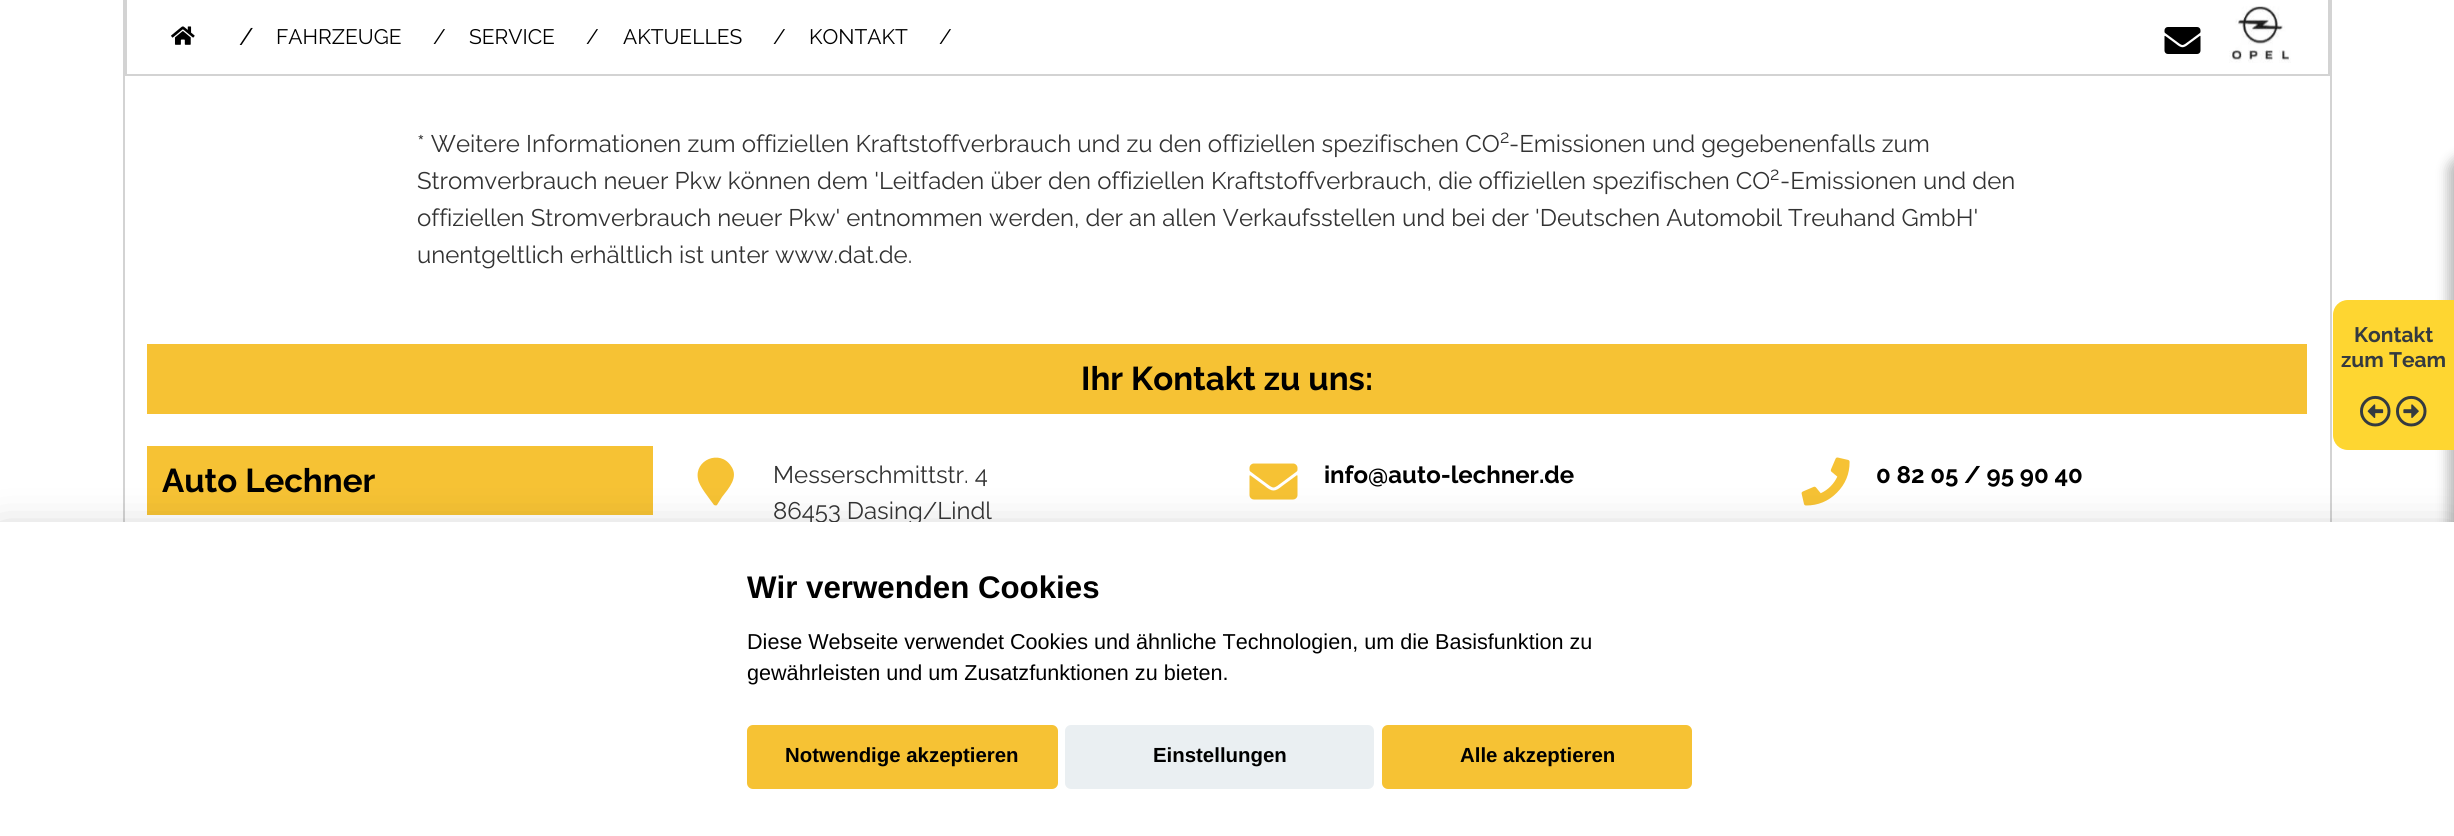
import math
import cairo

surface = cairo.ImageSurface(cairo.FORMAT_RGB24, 2454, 836)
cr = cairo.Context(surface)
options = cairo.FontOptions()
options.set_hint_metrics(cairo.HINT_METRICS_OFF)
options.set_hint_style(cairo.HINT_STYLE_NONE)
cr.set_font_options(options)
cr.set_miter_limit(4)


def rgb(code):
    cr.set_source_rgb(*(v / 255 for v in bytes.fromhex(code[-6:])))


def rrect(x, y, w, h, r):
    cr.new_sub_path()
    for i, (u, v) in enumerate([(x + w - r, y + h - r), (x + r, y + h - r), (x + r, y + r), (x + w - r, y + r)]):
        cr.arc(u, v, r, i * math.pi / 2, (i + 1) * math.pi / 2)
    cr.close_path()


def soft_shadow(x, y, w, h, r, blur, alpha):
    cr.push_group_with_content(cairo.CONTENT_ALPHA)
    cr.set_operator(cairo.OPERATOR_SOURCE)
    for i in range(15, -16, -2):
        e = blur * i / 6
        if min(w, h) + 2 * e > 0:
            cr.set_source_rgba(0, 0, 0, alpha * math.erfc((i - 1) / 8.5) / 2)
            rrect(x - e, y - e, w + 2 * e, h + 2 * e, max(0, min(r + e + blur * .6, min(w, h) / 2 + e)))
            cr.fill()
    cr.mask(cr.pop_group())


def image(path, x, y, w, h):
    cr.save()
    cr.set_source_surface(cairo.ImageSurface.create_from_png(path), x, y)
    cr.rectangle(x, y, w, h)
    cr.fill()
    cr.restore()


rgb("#ffffff")
cr.paint()
for x, y, w, h, color in [
    (2330, 0, 2, 522, "#d3d3d3"),
    (123, 0, 2, 522, "#d3d3d3"),
    (2328, 0, 2, 75, "#d3d3d3"),
    (125, 74, 2205, 2, "#d3d3d3"),
    (125, 0, 2, 75, "#d3d3d3"),
]:
    rgb(color)
    cr.rectangle(x, y, w, h)
    cr.fill()
image("img/1.png", 171, 26, 24, 19)
image("img/2.png", 2164, 27, 37, 27)
image("img/3.png", 2229, 6, 62, 57)
rgb("#323232")
soft_shadow(2448, 156, 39, 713, 15, 6, 0.34)
rgb("#fed631")
cr.new_path()
cr.move_to(2348, 300)
cr.line_to(2454, 300)
cr.line_to(2454, 450)
cr.line_to(2348, 450)
cr.curve_to(2339.5, 450, 2333, 443.5, 2333, 435)
cr.line_to(2333, 315)
cr.curve_to(2333, 306.5, 2339.5, 300, 2348, 300)
cr.close_path()
cr.fill()
image("img/4.png", 2360, 395, 31, 32)
image("img/5.png", 2396, 395, 31, 32)
rgb("#f6c234")
cr.rectangle(147, 344, 2160, 70)
cr.fill()
cr.rectangle(147, 446, 506, 69)
cr.fill()
cr.new_path()
cr.move_to(714, 505)
cr.curve_to(709, 498, 699, 486, 698, 479)
cr.curve_to(694, 460, 720, 449, 731, 466)
cr.curve_to(739, 477, 729, 488, 722, 497)
cr.line_to(717, 505)
cr.curve_to(716, 506, 714, 505, 714, 505)
cr.close_path()
cr.fill()
image("img/6.png", 1249, 463, 49, 37)
image("img/7.png", 1801, 457, 49, 49)
rgb("#020203")
soft_shadow(0, 537, 2454, 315, 0, 22.5, 0.28)
cr.select_font_face("Raleway")
cr.set_font_size(24)
rgb("#000000")
cr.move_to(239, 45)
cr.show_text("/")
cr.set_font_size(21)
for x, y, s in [
    (276, 44, "FAHRZEUGE"),
    (433, 44, "/"),
    (469, 44, "SERVICE"),
    (586, 44, "/"),
    (623, 44, "AKTUELLES"),
    (773, 44, "/"),
    (809, 44, "KONTAKT"),
    (939, 44, "/"),
]:
    cr.move_to(x, y)
    cr.show_text(s)
cr.set_font_size(24)
rgb("#333333")
cr.move_to(417, 152)
cr.show_text("* Weitere Informationen zum offiziellen Kraftstoffverbrauch und zu den offiziellen spezifischen CO")
cr.set_font_size(18)
cr.move_to(1500, 143)
cr.show_text("2")
cr.set_font_size(24)
cr.move_to(1509, 152)
cr.show_text("-Emissionen und gegebenenfalls zum")
cr.move_to(417, 189)
cr.show_text("Stromverbrauch neuer Pkw können dem 'Leitfaden über den offiziellen Kraftstoffverbrauch, die offiziellen spezifischen CO")
cr.set_font_size(18)
cr.move_to(1770, 180)
cr.show_text("2")
cr.set_font_size(24)
for x, y, s in [
    (1780, 189, "-Emissionen und den"),
    (417, 226, "offiziellen Stromverbrauch neuer Pkw' entnommen werden, der an allen Verkaufsstellen und bei der 'Deutschen Automobil Treuhand GmbH'"),
    (417, 263, "unentgeltlich erhältlich ist unter www.dat.de."),
]:
    cr.move_to(x, y)
    cr.show_text(s)
cr.select_font_face("Raleway", cairo.FONT_SLANT_NORMAL, cairo.FONT_WEIGHT_BOLD)
cr.set_font_size(21)
rgb("#343a40")
cr.move_to(2354, 342)
cr.show_text("Kontakt")
cr.move_to(2341, 367)
cr.show_text("zum Team")
cr.set_font_size(33)
rgb("#000000")
cr.move_to(1081, 390)
cr.show_text("Ihr Kontakt zu uns:")
cr.move_to(162, 492)
cr.show_text("Auto Lechner")
cr.select_font_face("Raleway")
cr.set_font_size(24)
rgb("#333333")
cr.move_to(773, 483)
cr.show_text("Messerschmittstr. 4")
cr.move_to(773, 519)
cr.show_text("86453 Dasing/Lindl")
cr.select_font_face("Raleway", cairo.FONT_SLANT_NORMAL, cairo.FONT_WEIGHT_BOLD)
rgb("#000000")
cr.move_to(1324, 483)
cr.show_text("info@auto-lechner.de")
cr.move_to(1876, 483)
cr.show_text("0 82 05 / 95 90 40")
rgb("#ffffff")
cr.rectangle(0, 522, 2454, 314)
cr.fill()
cr.select_font_face("Liberation Sans", cairo.FONT_SLANT_NORMAL, cairo.FONT_WEIGHT_BOLD)
cr.set_font_size(31.25)
rgb("#000000")
cr.move_to(747, 598)
cr.show_text("Wir verwenden Cookies")
cr.select_font_face("Liberation Sans")
cr.set_font_size(21.6)
cr.move_to(747, 649)
cr.show_text("Diese Webseite verwendet Cookies und ähnliche Technologien, um die Basisfunktion zu")
cr.move_to(747, 680)
cr.show_text("gewährleisten und um Zusatzfunktionen zu bieten.")
rgb("#f6c234")
rrect(747, 725, 311, 64, 6)
cr.fill()
cr.select_font_face("Liberation Sans", cairo.FONT_SLANT_NORMAL, cairo.FONT_WEIGHT_BOLD)
cr.set_font_size(20.4)
rgb("#000000")
cr.move_to(785, 762)
cr.show_text("Notwendige akzeptieren")
rgb("#eaeff2")
rrect(1065, 725, 309, 64, 6)
cr.fill()
rgb("#000000")
cr.move_to(1153, 762)
cr.show_text("Einstellungen")
rgb("#f6c234")
rrect(1382, 725, 310, 64, 6)
cr.fill()
rgb("#000000")
cr.move_to(1460, 762)
cr.show_text("Alle akzeptieren")
surface.write_to_png("page.png")
